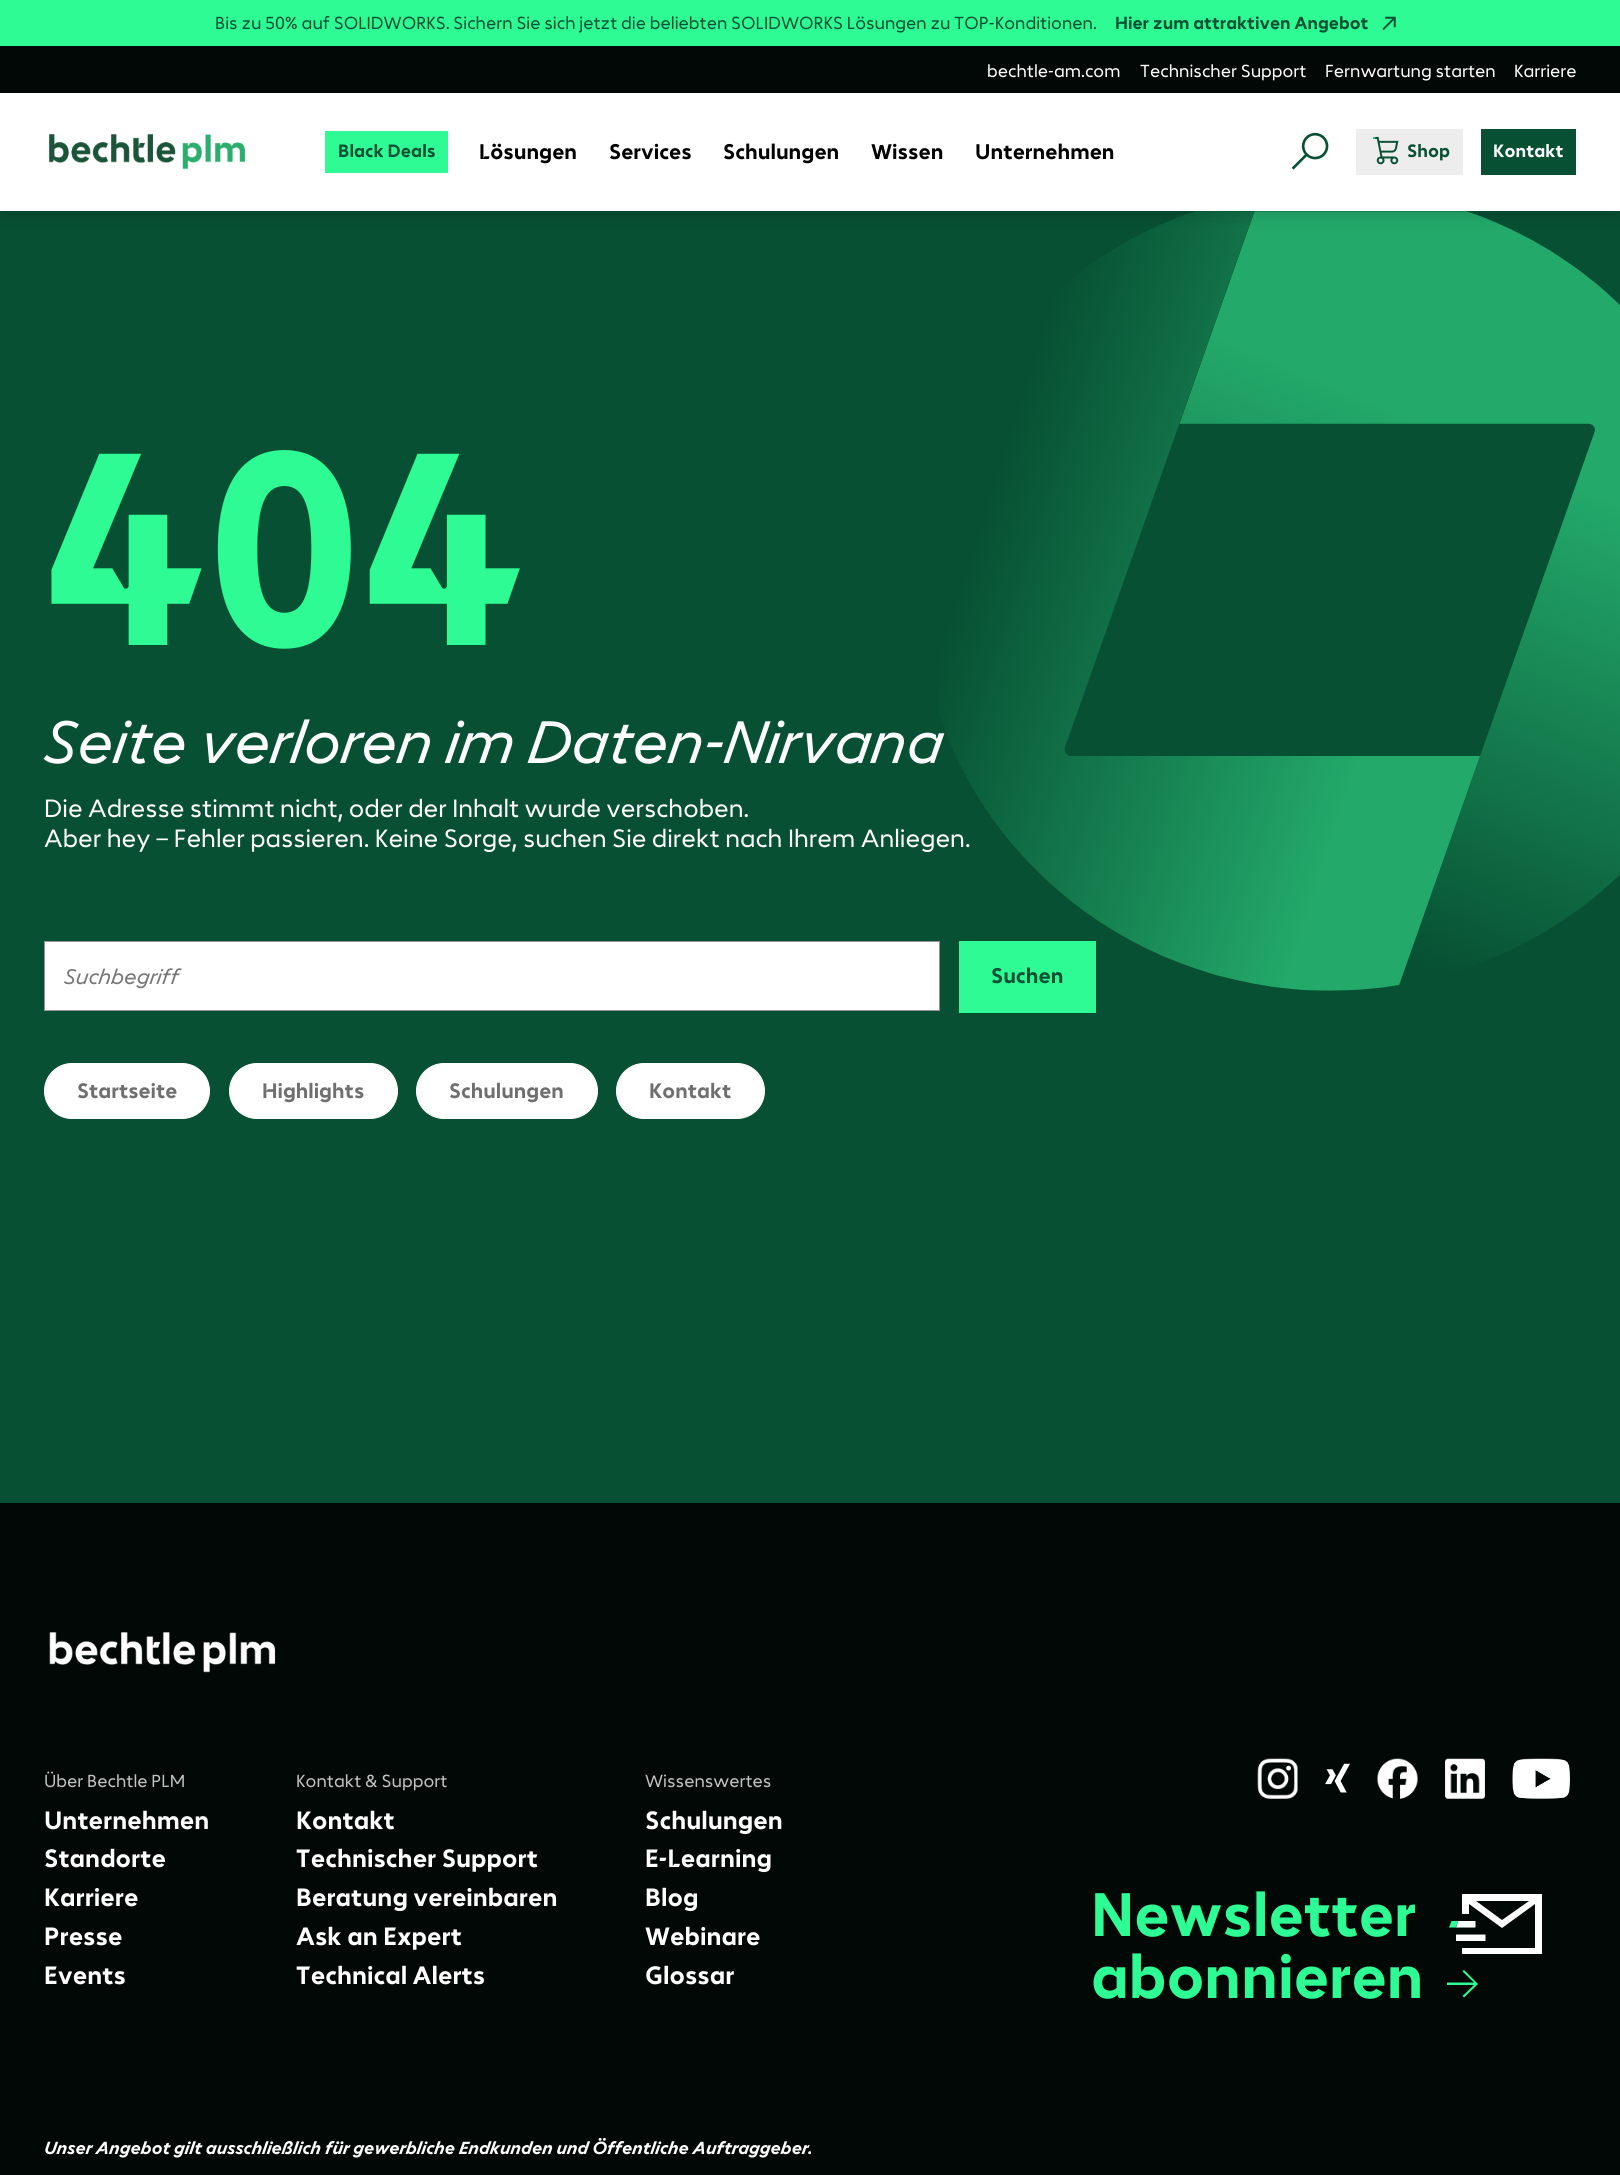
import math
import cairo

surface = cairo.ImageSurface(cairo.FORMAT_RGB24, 1620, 2175)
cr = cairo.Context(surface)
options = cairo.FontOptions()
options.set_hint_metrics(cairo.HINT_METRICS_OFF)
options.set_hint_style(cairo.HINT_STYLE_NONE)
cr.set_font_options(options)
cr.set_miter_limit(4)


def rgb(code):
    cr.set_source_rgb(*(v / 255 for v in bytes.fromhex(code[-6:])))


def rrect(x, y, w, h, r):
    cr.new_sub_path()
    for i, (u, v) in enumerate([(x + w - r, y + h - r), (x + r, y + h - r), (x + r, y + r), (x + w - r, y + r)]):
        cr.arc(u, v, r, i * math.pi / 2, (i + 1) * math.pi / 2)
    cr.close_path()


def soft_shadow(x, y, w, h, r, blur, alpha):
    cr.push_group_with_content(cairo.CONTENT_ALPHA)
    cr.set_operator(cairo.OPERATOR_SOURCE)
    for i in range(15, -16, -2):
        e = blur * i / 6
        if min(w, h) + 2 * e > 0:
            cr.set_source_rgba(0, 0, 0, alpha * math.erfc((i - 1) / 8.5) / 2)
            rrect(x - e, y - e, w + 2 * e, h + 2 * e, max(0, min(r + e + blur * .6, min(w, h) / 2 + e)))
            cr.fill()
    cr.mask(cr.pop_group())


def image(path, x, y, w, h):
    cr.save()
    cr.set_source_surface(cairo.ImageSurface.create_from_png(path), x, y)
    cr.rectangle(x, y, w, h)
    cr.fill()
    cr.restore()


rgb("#075033")
cr.paint()
rgb("#2ffb95")
cr.rectangle(0, 0, 1620, 46)
cr.fill()
image("img/1.png", 1382, 16, 14, 15)
rgb("#ffffff")
cr.rectangle(0, 93, 1620, 118)
cr.fill()
rgb("#010805")
cr.rectangle(0, 46, 1620, 47)
cr.fill()
rgb("#ffffff")
rrect(44.5, 1063.5, 165, 55, 27.5)
cr.fill_preserve()
cr.set_line_width(1)
cr.stroke()
rrect(229.5, 1063.5, 168, 55, 27.5)
cr.fill_preserve()
cr.stroke()
rrect(416.5, 1063.5, 181, 55, 27.5)
cr.fill_preserve()
cr.stroke()
rrect(616.5, 1063.5, 148, 55, 27.5)
cr.fill_preserve()
cr.stroke()
rgb("#010805")
cr.rectangle(0, 1503, 1620, 672)
cr.fill()
image("img/6.png", 49, 1632, 227, 41)
image("img/7.png", 1257, 1758, 41, 41)
image("img/8.png", 1325, 1763, 25, 30)
image("img/9.png", 1377, 1758, 41, 41)
image("img/10.png", 1445, 1758, 40, 41)
image("img/11.png", 1512, 1758, 58, 41)
rgb("#ffffff")
cr.new_path()
cr.move_to(1462, 1894)
cr.line_to(1462, 1914)
cr.line_to(1469, 1914)
cr.line_to(1469, 1904)
cr.line_to(1502, 1928)
cr.line_to(1535, 1904)
cr.line_to(1535, 1948)
cr.line_to(1462, 1948)
cr.line_to(1462, 1954)
cr.line_to(1542, 1954)
cr.line_to(1542, 1894)
cr.close_path()
cr.move_to(1502, 1920)
cr.line_to(1476, 1901)
cr.line_to(1529, 1901)
cr.close_path()
cr.fill()
cr.new_path()
cr.move_to(1469, 1941)
cr.line_to(1485.5, 1941)
cr.line_to(1485.5, 1934.5)
cr.line_to(1456, 1934.5)
cr.line_to(1456, 1941)
cr.line_to(1462.5, 1941)
cr.close_path()
cr.move_to(1459, 1927.5)
cr.line_to(1475.5, 1927.5)
cr.line_to(1475.5, 1921)
cr.line_to(1458, 1921)
cr.line_to(1456, 1927.5)
cr.fill()
rgb("#2ffb95")
cr.new_path()
cr.move_to(1451.5, 1921)
cr.line_to(1449, 1927.5)
cr.line_to(1456, 1927.5)
cr.line_to(1458, 1921)
cr.close_path()
cr.fill()
cr.new_path()
cr.move_to(1464, 1970)
cr.line_to(1462.5, 1971.5)
cr.line_to(1474, 1982.5)
cr.line_to(1447, 1982.5)
cr.line_to(1447, 1985)
cr.line_to(1474, 1985)
cr.line_to(1462.5, 1996)
cr.line_to(1464, 1997.5)
cr.line_to(1478, 1984)
cr.close_path()
cr.fill()
cr.select_font_face("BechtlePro")
cr.set_font_size(15.93)
rgb("#075033")
cr.move_to(215, 29)
cr.show_text("Bis zu 50% auf SOLIDWORKS. Sichern Sie sich jetzt die beliebten SOLIDWORKS Lösungen zu TOP-Konditionen.")
cr.select_font_face("BechtlePro", cairo.FONT_SLANT_NORMAL, cairo.FONT_WEIGHT_BOLD)
cr.move_to(1115, 29)
cr.show_text("Hier zum attraktiven Angebot")
cr.select_font_face("BechtlePro")
rgb("#ffffff")
for x, y, s in [
    (987, 77, "bechtle-am.com"),
    (1140, 77, "Technischer Support"),
    (1325, 77, "Fernwartung starten"),
    (1514, 77, "Karriere"),
]:
    cr.move_to(x, y)
    cr.show_text(s)
cr.select_font_face("BechtlePro", cairo.FONT_SLANT_NORMAL, cairo.FONT_WEIGHT_BOLD)
cr.set_font_size(249)
rgb("#2ffb95")
cr.move_to(44, 645)
cr.show_text("404")
cr.select_font_face("BechtlePro", cairo.FONT_SLANT_ITALIC)
cr.set_font_size(54.5)
rgb("#ffffff")
cr.move_to(44, 763)
cr.show_text("Seite verloren im Daten-Nirvana")
cr.select_font_face("BechtlePro")
cr.set_font_size(22.8)
cr.move_to(44, 817)
cr.show_text("Die Adresse stimmt nicht, oder der Inhalt wurde verschoben.")
cr.move_to(44, 847)
cr.show_text("Aber hey – Fehler passieren. Keine Sorge, suchen Sie direkt nach Ihrem Anliegen.")
cr.select_font_face("BechtlePro", cairo.FONT_SLANT_NORMAL, cairo.FONT_WEIGHT_BOLD)
cr.set_font_size(19)
rgb("#706f6f")
for x, y, s in [
    (77, 1098, "Startseite"),
    (262, 1098, "Highlights"),
    (449, 1098, "Schulungen"),
    (649, 1098, "Kontakt"),
]:
    cr.move_to(x, y)
    cr.show_text(s)
image("img/5.png", 939, 211, 681, 780)
cr.save()
cr.set_fill_rule(cairo.FILL_RULE_EVEN_ODD)
cr.new_path()
cr.move_to(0, 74)
cr.line_to(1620, 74)
cr.line_to(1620, 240)
cr.line_to(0, 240)
cr.close_path()
cr.move_to(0, 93)
cr.line_to(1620, 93)
cr.line_to(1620, 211)
cr.line_to(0, 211)
cr.close_path()
cr.clip()
rgb("#000000")
soft_shadow(0, 98, 1620, 118, 0, 7.5, 0.14)
cr.restore()
rgb("#ededed")
cr.rectangle(1356, 129, 107, 46)
cr.fill()
image("img/4.png", 1372, 136, 27, 29)
cr.set_font_size(16.25)
rgb("#075033")
cr.move_to(1407, 157)
cr.show_text("Shop")
image("img/3.png", 1291, 132, 38, 38)
cr.rectangle(1481, 129, 95, 46)
cr.fill()
rgb("#ffffff")
cr.move_to(1493, 157)
cr.show_text("Kontakt")
cr.set_font_size(19.25)
rgb("#000000")
for x, y, s in [
    (975, 159, "Unternehmen"),
    (871, 159, "Wissen"),
    (723, 159, "Schulungen"),
    (609, 159, "Services"),
    (479, 159, "Lösungen"),
]:
    cr.move_to(x, y)
    cr.show_text(s)
rgb("#2ffb95")
cr.rectangle(325, 131, 123, 42)
cr.fill()
cr.set_font_size(16.25)
rgb("#075033")
cr.move_to(338, 157)
cr.show_text("Black Deals")
image("img/2.png", 49, 134, 197, 36)
rgb("#2ffb95")
cr.rectangle(959, 941, 137, 72)
cr.fill()
cr.set_font_size(19.25)
rgb("#075033")
cr.move_to(991, 983)
cr.show_text("Suchen")
rgb("#ffffff")
cr.rectangle(44.5, 941.5, 895, 69)
cr.fill_preserve()
rgb("#949494")
cr.stroke()
cr.select_font_face("BechtlePro", cairo.FONT_SLANT_ITALIC)
rgb("#757575")
cr.move_to(64, 984)
cr.show_text("Suchbegriff")
cr.select_font_face("BechtlePro")
cr.set_font_size(15.93)
rgb("#c3c3c3")
cr.move_to(44, 1787)
cr.show_text("Über Bechtle PLM")
cr.select_font_face("BechtlePro", cairo.FONT_SLANT_NORMAL, cairo.FONT_WEIGHT_BOLD)
cr.set_font_size(22.8)
rgb("#ffffff")
for x, y, s in [
    (44, 1829, "Unternehmen"),
    (44, 1867, "Standorte"),
    (44, 1906, "Karriere"),
    (44, 1945, "Presse"),
    (44, 1984, "Events"),
]:
    cr.move_to(x, y)
    cr.show_text(s)
cr.select_font_face("BechtlePro")
cr.set_font_size(15.93)
rgb("#c3c3c3")
cr.move_to(296, 1787)
cr.show_text("Kontakt & Support")
cr.select_font_face("BechtlePro", cairo.FONT_SLANT_NORMAL, cairo.FONT_WEIGHT_BOLD)
cr.set_font_size(22.8)
rgb("#ffffff")
for x, y, s in [
    (296, 1829, "Kontakt"),
    (296, 1867, "Technischer Support"),
    (296, 1906, "Beratung vereinbaren"),
    (296, 1945, "Ask an Expert"),
    (296, 1984, "Technical Alerts"),
]:
    cr.move_to(x, y)
    cr.show_text(s)
cr.select_font_face("BechtlePro")
cr.set_font_size(15.93)
rgb("#c3c3c3")
cr.move_to(645, 1787)
cr.show_text("Wissenswertes")
cr.select_font_face("BechtlePro", cairo.FONT_SLANT_NORMAL, cairo.FONT_WEIGHT_BOLD)
cr.set_font_size(22.8)
rgb("#ffffff")
for x, y, s in [
    (645, 1829, "Schulungen"),
    (645, 1867, "E-Learning"),
    (645, 1906, "Blog"),
    (645, 1945, "Webinare"),
    (645, 1984, "Glossar"),
]:
    cr.move_to(x, y)
    cr.show_text(s)
cr.set_font_size(55.75)
rgb("#2ffb95")
cr.move_to(1091, 1936)
cr.show_text("Newsletter")
cr.move_to(1091, 1998)
cr.show_text("abonnieren")
cr.select_font_face("BechtlePro", cairo.FONT_SLANT_ITALIC, cairo.FONT_WEIGHT_BOLD)
cr.set_font_size(15.93)
rgb("#ffffff")
cr.move_to(44, 2154)
cr.show_text("Unser Angebot gilt ausschließlich für gewerbliche Endkunden und Öffentliche Auftraggeber.")
surface.write_to_png("page.png")
